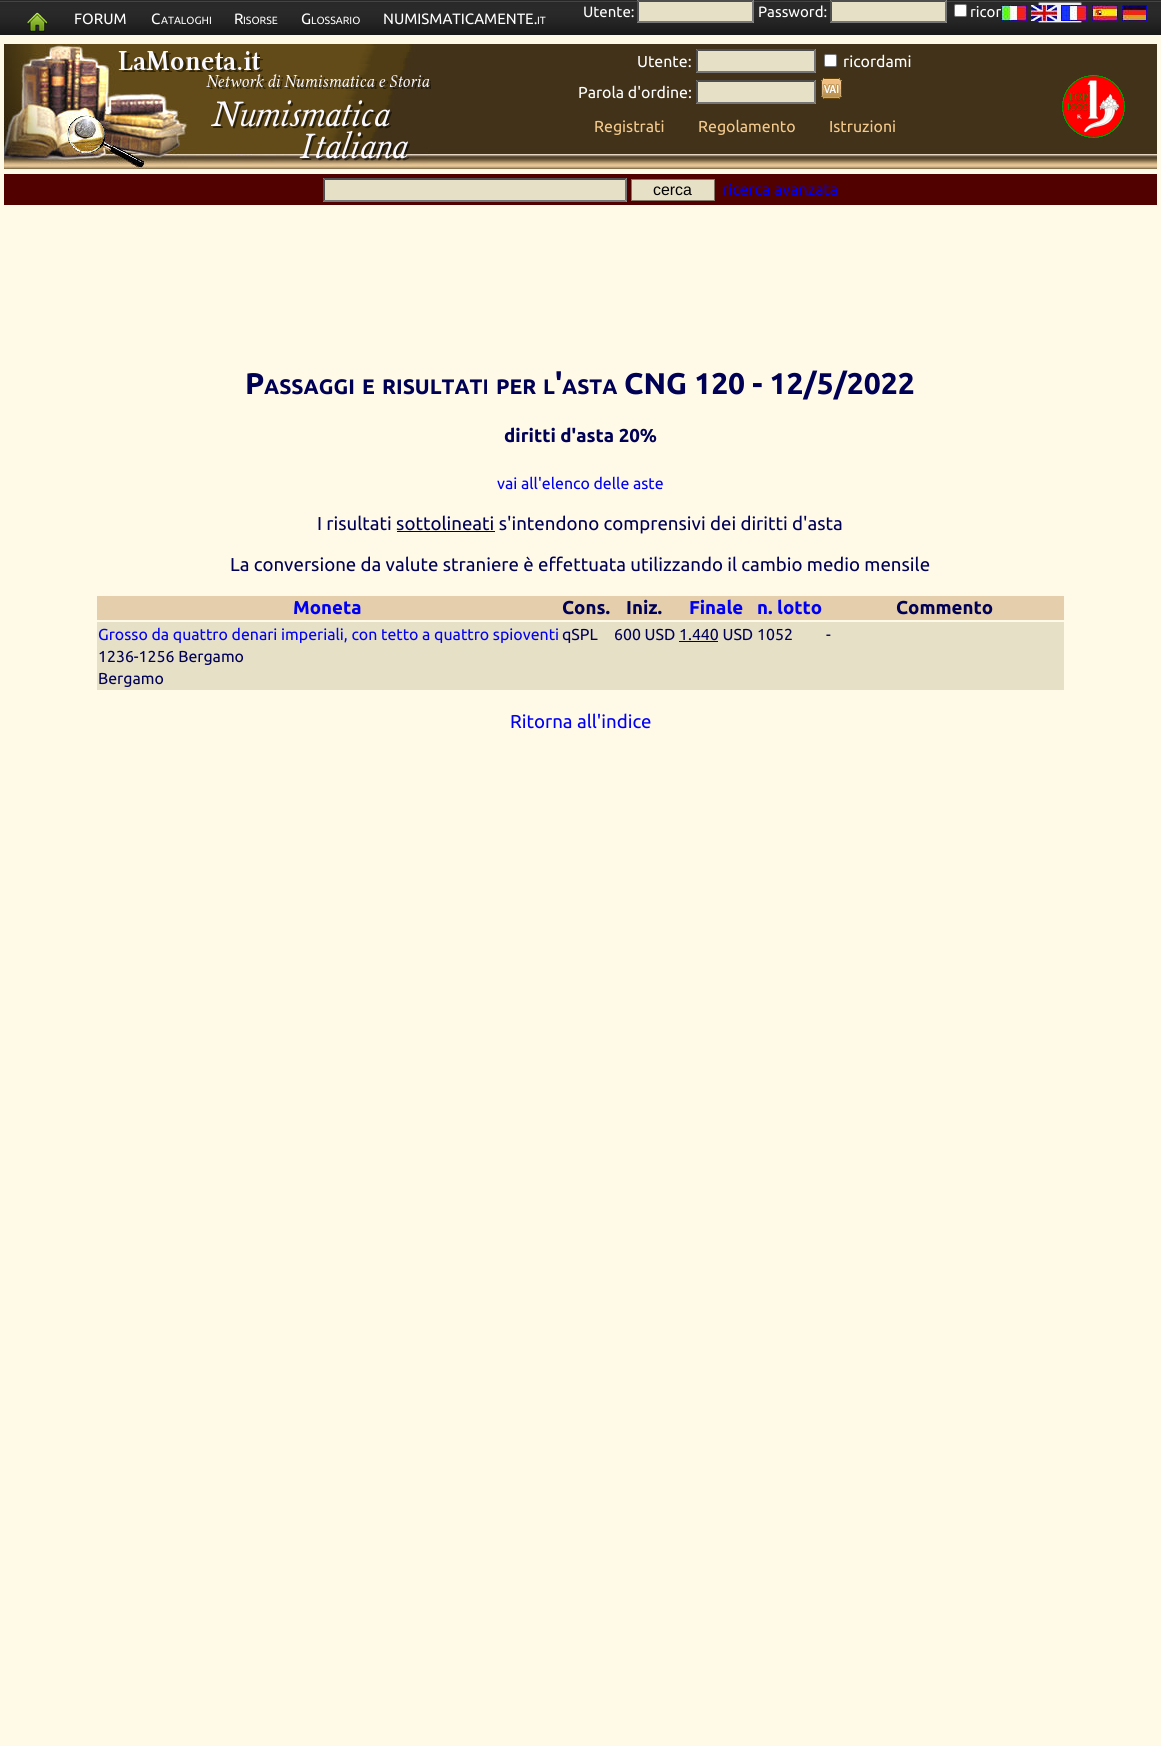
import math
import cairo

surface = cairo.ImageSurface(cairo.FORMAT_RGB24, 1161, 1746)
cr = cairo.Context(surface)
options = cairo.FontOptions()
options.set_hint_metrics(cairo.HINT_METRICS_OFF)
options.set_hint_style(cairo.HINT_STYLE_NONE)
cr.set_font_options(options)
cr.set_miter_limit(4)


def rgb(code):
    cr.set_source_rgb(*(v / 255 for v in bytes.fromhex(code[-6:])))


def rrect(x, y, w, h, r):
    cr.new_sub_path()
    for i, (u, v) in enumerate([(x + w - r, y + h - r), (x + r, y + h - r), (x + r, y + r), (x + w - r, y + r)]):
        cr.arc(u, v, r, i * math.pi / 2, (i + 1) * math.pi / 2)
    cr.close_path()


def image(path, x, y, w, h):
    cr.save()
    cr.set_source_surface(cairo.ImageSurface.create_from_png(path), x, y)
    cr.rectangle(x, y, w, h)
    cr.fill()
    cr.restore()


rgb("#fff9e8")
cr.paint()
image("img/1.png", 0, 0, 1161, 35)
image("img/2.png", 27, 12, 21, 20)
rgb("#e6e0c6")
cr.rectangle(637, 0, 117, 23)
cr.fill()
rgb("#4f4f4f")
cr.new_path()
cr.move_to(637, 0)
cr.line_to(754, 0)
cr.line_to(752, 2)
cr.line_to(639, 2)
cr.close_path()
cr.fill()
rgb("#767676")
cr.new_path()
cr.move_to(754, 0)
cr.line_to(754, 23)
cr.line_to(752, 21)
cr.line_to(752, 2)
cr.close_path()
cr.fill()
cr.new_path()
cr.move_to(754, 23)
cr.line_to(637, 23)
cr.line_to(639, 21)
cr.line_to(752, 21)
cr.close_path()
cr.fill()
rgb("#4f4f4f")
cr.new_path()
cr.move_to(637, 23)
cr.line_to(637, 0)
cr.line_to(639, 2)
cr.line_to(639, 21)
cr.close_path()
cr.fill()
rgb("#e6e0c6")
cr.rectangle(830, 0, 117, 23)
cr.fill()
rgb("#4f4f4f")
cr.new_path()
cr.move_to(830, 0)
cr.line_to(947, 0)
cr.line_to(945, 2)
cr.line_to(832, 2)
cr.close_path()
cr.fill()
rgb("#767676")
cr.new_path()
cr.move_to(947, 0)
cr.line_to(947, 23)
cr.line_to(945, 21)
cr.line_to(945, 2)
cr.close_path()
cr.fill()
cr.new_path()
cr.move_to(947, 23)
cr.line_to(830, 23)
cr.line_to(832, 21)
cr.line_to(945, 21)
cr.close_path()
cr.fill()
rgb("#4f4f4f")
cr.new_path()
cr.move_to(830, 23)
cr.line_to(830, 0)
cr.line_to(832, 2)
cr.line_to(832, 21)
cr.close_path()
cr.fill()
rgb("#ffffff")
rrect(954.5, 4.5, 12, 12, 1.5)
cr.fill_preserve()
rgb("#767676")
cr.set_line_width(1)
cr.stroke()
rgb("#efefef")
rrect(1038.5, 2.5, 43, 20, 1.5)
cr.fill_preserve()
rgb("#767676")
cr.stroke()
image("img/4.png", 1031, 5, 26, 16)
image("img/5.png", 1061, 5, 26, 16)
image("img/6.png", 1092, 5, 26, 16)
image("img/7.png", 1122, 5, 25, 16)
image("img/8.png", 431, 44, 726, 125)
image("img/9.png", 4, 44, 427, 125)
rgb("#e6e0c6")
cr.rectangle(696, 49, 120, 24)
cr.fill()
rgb("#4f4f4f")
cr.new_path()
cr.move_to(696, 49)
cr.line_to(816, 49)
cr.line_to(814, 51)
cr.line_to(698, 51)
cr.close_path()
cr.fill()
rgb("#767676")
cr.new_path()
cr.move_to(816, 49)
cr.line_to(816, 73)
cr.line_to(814, 71)
cr.line_to(814, 51)
cr.close_path()
cr.fill()
cr.new_path()
cr.move_to(816, 73)
cr.line_to(696, 73)
cr.line_to(698, 71)
cr.line_to(814, 71)
cr.close_path()
cr.fill()
rgb("#4f4f4f")
cr.new_path()
cr.move_to(696, 73)
cr.line_to(696, 49)
cr.line_to(698, 51)
cr.line_to(698, 71)
cr.close_path()
cr.fill()
rgb("#ffffff")
rrect(824.5, 54.5, 12, 12, 1.5)
cr.fill_preserve()
rgb("#767676")
cr.stroke()
rgb("#e6e0c6")
cr.rectangle(696, 80, 120, 24)
cr.fill()
rgb("#4f4f4f")
cr.new_path()
cr.move_to(696, 80)
cr.line_to(816, 80)
cr.line_to(814, 82)
cr.line_to(698, 82)
cr.close_path()
cr.fill()
rgb("#767676")
cr.new_path()
cr.move_to(816, 80)
cr.line_to(816, 104)
cr.line_to(814, 102)
cr.line_to(814, 82)
cr.close_path()
cr.fill()
cr.new_path()
cr.move_to(816, 104)
cr.line_to(696, 104)
cr.line_to(698, 102)
cr.line_to(814, 102)
cr.close_path()
cr.fill()
rgb("#4f4f4f")
cr.new_path()
cr.move_to(696, 104)
cr.line_to(696, 80)
cr.line_to(698, 82)
cr.line_to(698, 102)
cr.close_path()
cr.fill()
image("img/10.png", 821, 78, 21, 21)
image("img/11.png", 1062, 75, 63, 63)
rgb("#520101")
cr.rectangle(4, 174, 1153, 31)
cr.fill()
rgb("#e6e0c6")
cr.rectangle(323, 178, 304, 24)
cr.fill()
rgb("#4f4f4f")
cr.new_path()
cr.move_to(323, 178)
cr.line_to(627, 178)
cr.line_to(625, 180)
cr.line_to(325, 180)
cr.close_path()
cr.fill()
rgb("#767676")
cr.new_path()
cr.move_to(627, 178)
cr.line_to(627, 202)
cr.line_to(625, 200)
cr.line_to(625, 180)
cr.close_path()
cr.fill()
cr.new_path()
cr.move_to(627, 202)
cr.line_to(323, 202)
cr.line_to(325, 200)
cr.line_to(625, 200)
cr.close_path()
cr.fill()
rgb("#4f4f4f")
cr.new_path()
cr.move_to(323, 202)
cr.line_to(323, 178)
cr.line_to(325, 180)
cr.line_to(325, 200)
cr.close_path()
cr.fill()
rgb("#e6e0c6")
cr.rectangle(631.5, 179.5, 83, 21)
cr.fill_preserve()
rgb("#857666")
cr.stroke()
for x, y, w, h, color in [
    (397, 531, 98, 1, "#000055"),
    (97, 596, 967, 24, "#e4ceac"),
    (97, 622, 967, 68, "#e6e0c6"),
    (679, 641, 39, 1, "#000055"),
]:
    rgb(color)
    cr.rectangle(x, y, w, h)
    cr.fill()
cr.select_font_face("Ubuntu")
cr.set_font_size(15)
rgb("#ffffff")
cr.move_to(74, 24)
cr.show_text("FORUM")
cr.move_to(151, 24)
cr.show_text("C")
cr.set_font_size(10.5)
cr.move_to(161, 24)
cr.show_text("ATALOGHI")
cr.set_font_size(15)
cr.move_to(234, 24)
cr.show_text("R")
cr.set_font_size(10.5)
cr.move_to(243, 24)
cr.show_text("ISORSE")
cr.set_font_size(15)
cr.move_to(301, 24)
cr.show_text("G")
cr.set_font_size(10.5)
cr.move_to(311, 24)
cr.show_text("LOSSARIO")
cr.set_font_size(15)
cr.move_to(383, 24)
cr.show_text("NUMISMATICAMENTE.")
cr.set_font_size(10.5)
cr.move_to(537, 24)
cr.show_text("IT")
cr.set_font_size(15)
for x, y, s in [
    (583, 17, "Utente:"),
    (758, 17, "Password:"),
    (970, 17, "ricor"),
]:
    cr.move_to(x, y)
    cr.show_text(s)
image("img/3.png", 1001, 5, 26, 16)
cr.set_font_size(15.9)
for x, y, s in [
    (637, 67, "Utente:"),
    (843, 67, "ricordami"),
    (578, 98, "Parola d'ordine:"),
]:
    cr.move_to(x, y)
    cr.show_text(s)
rgb("#f4ca8c")
for x, y, s in [
    (594, 132, "Registrati"),
    (698, 132, "Regolamento"),
    (829, 132, "Istruzioni"),
]:
    cr.move_to(x, y)
    cr.show_text(s)
cr.select_font_face("Liberation Sans")
rgb("#000000")
cr.move_to(653, 195)
cr.show_text("cerca")
cr.select_font_face("Ubuntu")
rgb("#0000f0")
cr.move_to(722, 195)
cr.show_text("ricerca avanzata")
cr.select_font_face("Ubuntu", cairo.FONT_SLANT_NORMAL, cairo.FONT_WEIGHT_BOLD)
cr.set_font_size(29.9)
rgb("#000055")
cr.move_to(245, 394)
cr.show_text("P")
cr.set_font_size(21)
for x, y, s in [
    (264, 394, "ASSAGGI"),
    (362, 394, "E"),
    (382, 394, "RISULTATI"),
    (496, 394, "PER"),
    (543, 394, "L"),
]:
    cr.move_to(x, y)
    cr.show_text(s)
cr.set_font_size(29.9)
cr.move_to(555, 394)
cr.show_text("'")
cr.set_font_size(21)
cr.move_to(562, 394)
cr.show_text("ASTA")
cr.set_font_size(29.9)
cr.move_to(624, 394)
cr.show_text("CNG 120 - 12/5/2022")
cr.set_font_size(18.65)
cr.move_to(504, 442)
cr.show_text("diritti d'asta 20%")
cr.select_font_face("Ubuntu")
cr.set_font_size(15.9)
rgb("#0000f0")
cr.move_to(497, 489)
cr.show_text("vai all'elenco delle aste")
cr.set_font_size(18.65)
rgb("#000055")
cr.move_to(317, 530)
cr.show_text("I risultati sottolineati s'intendono comprensivi dei diritti d'asta")
cr.move_to(230, 571)
cr.show_text("La conversione da valute straniere è effettuata utilizzando il cambio medio mensile")
cr.select_font_face("Ubuntu", cairo.FONT_SLANT_NORMAL, cairo.FONT_WEIGHT_BOLD)
rgb("#0000f0")
cr.move_to(293, 614)
cr.show_text("Moneta")
rgb("#000055")
cr.move_to(562, 614)
cr.show_text("Cons.")
cr.move_to(626, 614)
cr.show_text("Iniz.")
rgb("#0000f0")
cr.move_to(689, 614)
cr.show_text("Finale")
cr.move_to(757, 614)
cr.show_text("n. lotto")
rgb("#000055")
cr.move_to(896, 614)
cr.show_text("Commento")
cr.select_font_face("Ubuntu")
cr.set_font_size(15.9)
rgb("#0000f0")
cr.move_to(98, 640)
cr.show_text("Grosso da quattro denari imperiali, con tetto a quattro spioventi")
rgb("#000055")
for x, y, s in [
    (98, 662, "1236-1256 Bergamo"),
    (98, 684, "Bergamo"),
    (562, 640, "qSPL"),
    (614, 640, "600 USD"),
    (679, 640, "1.440 USD"),
    (757, 640, "1052"),
    (826, 640, "-"),
]:
    cr.move_to(x, y)
    cr.show_text(s)
cr.set_font_size(18.65)
rgb("#0000f0")
cr.move_to(510, 728)
cr.show_text("Ritorna all'indice")
surface.write_to_png("page.png")
